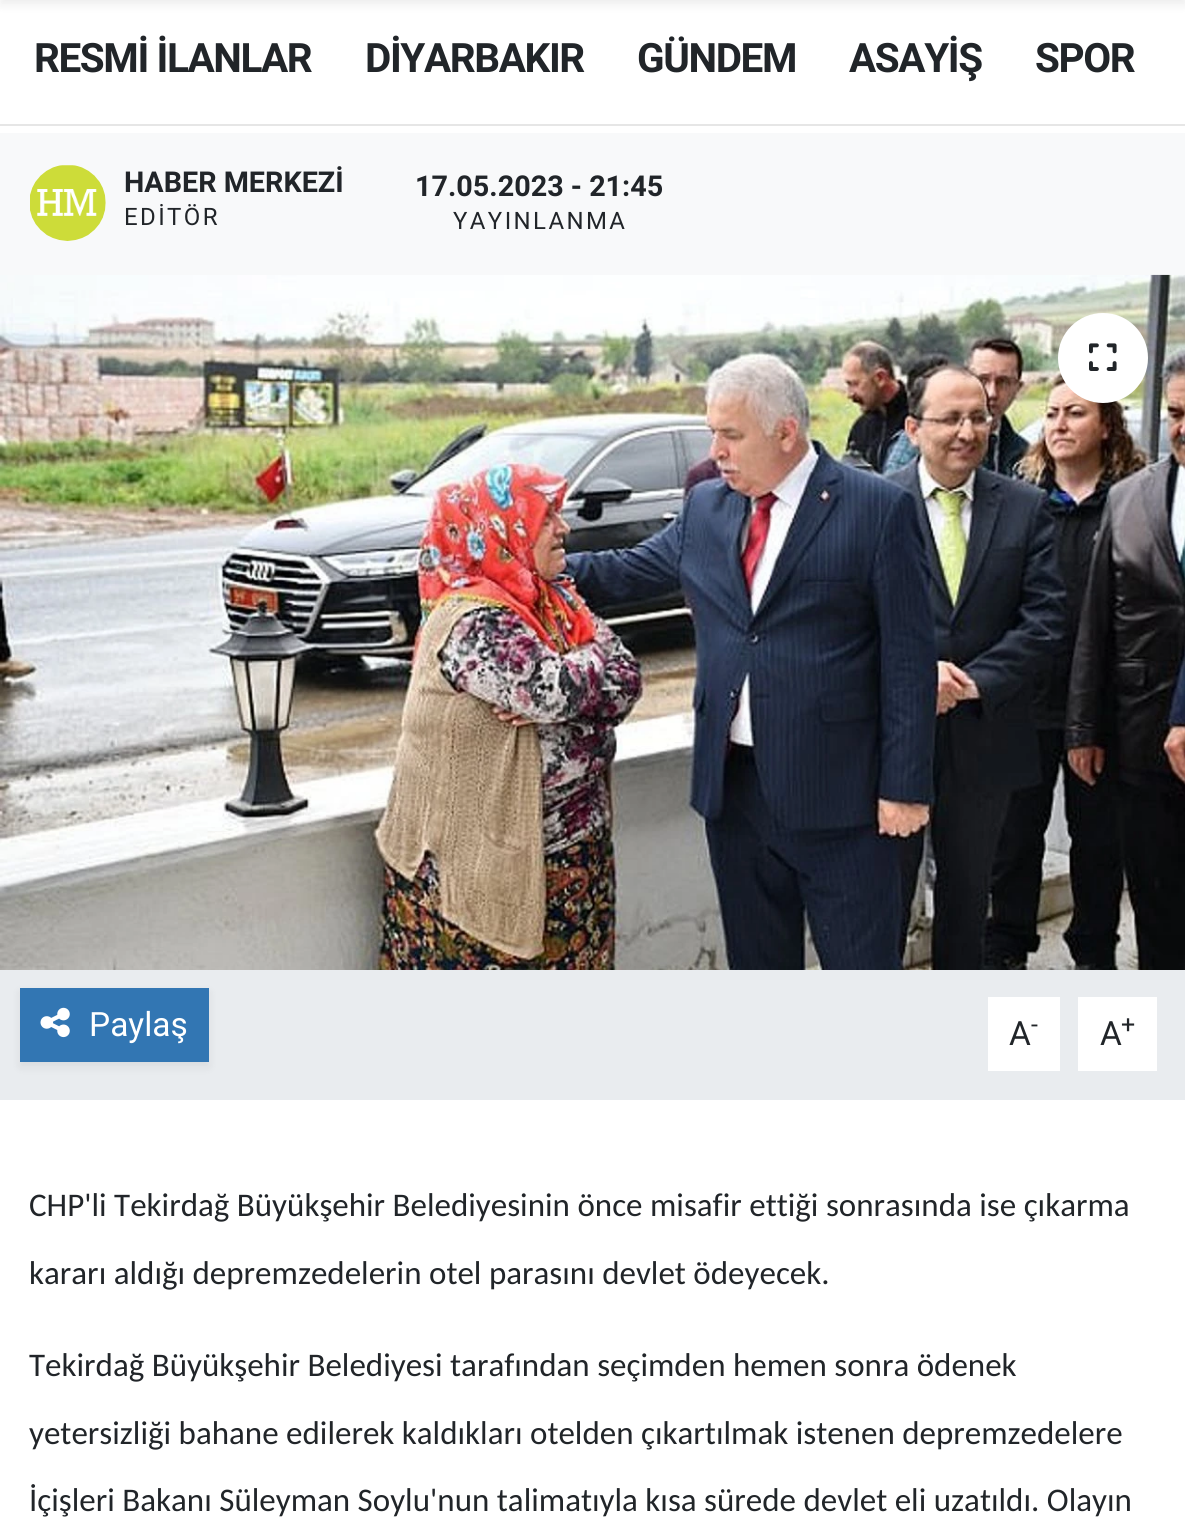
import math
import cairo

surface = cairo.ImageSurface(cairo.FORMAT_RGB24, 1185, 1518)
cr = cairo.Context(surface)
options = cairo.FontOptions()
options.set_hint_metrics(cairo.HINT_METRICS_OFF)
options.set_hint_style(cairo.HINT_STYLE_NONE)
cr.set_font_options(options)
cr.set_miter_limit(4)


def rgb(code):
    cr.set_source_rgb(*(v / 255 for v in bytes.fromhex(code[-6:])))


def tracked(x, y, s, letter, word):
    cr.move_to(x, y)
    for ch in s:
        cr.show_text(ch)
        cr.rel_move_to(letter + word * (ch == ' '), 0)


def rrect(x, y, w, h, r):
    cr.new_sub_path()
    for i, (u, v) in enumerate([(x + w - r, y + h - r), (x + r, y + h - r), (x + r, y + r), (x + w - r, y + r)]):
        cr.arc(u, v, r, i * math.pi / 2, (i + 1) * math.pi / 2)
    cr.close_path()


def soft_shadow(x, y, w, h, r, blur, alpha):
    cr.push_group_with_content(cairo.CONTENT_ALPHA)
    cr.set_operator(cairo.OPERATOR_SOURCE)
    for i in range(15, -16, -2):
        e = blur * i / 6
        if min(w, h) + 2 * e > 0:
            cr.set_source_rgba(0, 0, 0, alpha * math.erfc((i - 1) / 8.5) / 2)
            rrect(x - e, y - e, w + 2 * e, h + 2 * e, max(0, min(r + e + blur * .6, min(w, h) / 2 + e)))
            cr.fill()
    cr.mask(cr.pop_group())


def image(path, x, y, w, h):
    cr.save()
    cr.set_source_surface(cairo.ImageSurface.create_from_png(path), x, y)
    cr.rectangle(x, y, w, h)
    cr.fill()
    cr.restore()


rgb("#e9ecef")
cr.paint()
rgb("#ffffff")
cr.rectangle(0, 0, 1185, 124)
cr.fill()
rgb("#000000")
soft_shadow(0, -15, 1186, 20, 0, 5, 0.07)
for x, y, w, h, color in [
    (0, 124, 1185, 2, "#e6e6e6"),
    (0, 126, 1185, 7, "#ffffff"),
    (0, 133, 1185, 142, "#f8f9fa"),
]:
    rgb(color)
    cr.rectangle(x, y, w, h)
    cr.fill()
image("img/1.png", 30, 165, 76, 76)
image("img/2.png", 0, 274, 1185, 696)
rgb("#ffffff")
cr.arc(1103, 358, 45, 0, 2 * math.pi)
cr.fill()
image("img/3.png", 1089, 343, 28, 28)
rgb("#000000")
soft_shadow(20, 992, 189, 75, 0, 5, 0.07)
rgb("#3276b3")
cr.rectangle(20, 988, 189, 74)
cr.fill()
image("img/4.png", 40, 1007, 30, 31)
for x, y, w, h, color in [
    (988, 997, 72, 74, "#ffffff"),
    (1078, 997, 79, 74, "#ffffff"),
    (0, 1100, 1185, 418, "#ffffff"),
]:
    rgb(color)
    cr.rectangle(x, y, w, h)
    cr.fill()
cr.select_font_face("Roboto", cairo.FONT_SLANT_NORMAL, cairo.FONT_WEIGHT_BOLD)
cr.set_font_size(40.5)
rgb("#212529")
for x, y, s in [
    (34, 72, "RESMİ İLANLAR"),
    (365, 72, "DİYARBAKIR"),
    (637, 72, "GÜNDEM"),
    (849, 72, "ASAYİŞ"),
    (1035, 72, "SPOR"),
]:
    tracked(x, y, s, -1.4, 0)
cr.set_font_size(28.75)
cr.move_to(124, 192)
cr.show_text("HABER MERKEZİ")
cr.select_font_face("Roboto")
cr.set_font_size(24)
tracked(124, 225, "EDİTÖR", 2.4, 0)
cr.select_font_face("Roboto", cairo.FONT_SLANT_NORMAL, cairo.FONT_WEIGHT_BOLD)
cr.set_font_size(28.75)
cr.move_to(415, 196)
cr.show_text("17.05.2023 - 21:45")
cr.select_font_face("Roboto")
cr.set_font_size(24)
tracked(453, 229, "YAYINLANMA", 2.4, 0)
cr.set_font_size(33.5)
rgb("#ffffff")
cr.move_to(89, 1036)
cr.show_text("Paylaş")
rgb("#212529")
cr.move_to(1009, 1045)
cr.show_text("A")
cr.set_font_size(25)
cr.move_to(1031, 1033)
cr.show_text("-")
cr.set_font_size(33.5)
cr.move_to(1100, 1045)
cr.show_text("A")
cr.set_font_size(25)
cr.move_to(1121, 1033)
cr.show_text("+")
cr.select_font_face("Carlito")
cr.set_font_size(33)
for x, y, s in [
    (29, 1216, "CHP'li Tekirdağ Büyükşehir Belediyesinin önce misafir ettiği sonrasında ise çıkarma"),
    (29, 1284, "kararı aldığı depremzedelerin otel parasını devlet ödeyecek."),
    (29, 1376, "Tekirdağ Büyükşehir Belediyesi tarafından seçimden hemen sonra ödenek"),
    (29, 1444, "yetersizliği bahane edilerek kaldıkları otelden çıkartılmak istenen depremzedelere"),
    (29, 1511, "İçişleri Bakanı Süleyman Soylu'nun talimatıyla kısa sürede devlet eli uzatıldı. Olayın"),
]:
    cr.move_to(x, y)
    cr.show_text(s)
surface.write_to_png("page.png")
